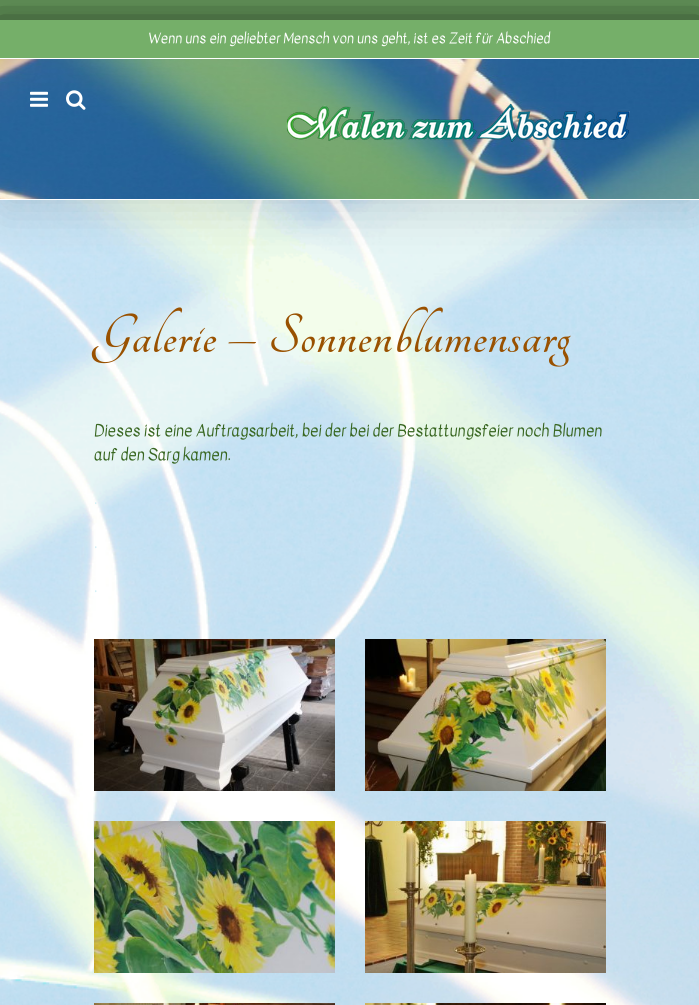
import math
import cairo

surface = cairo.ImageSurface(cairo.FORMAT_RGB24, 699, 1005)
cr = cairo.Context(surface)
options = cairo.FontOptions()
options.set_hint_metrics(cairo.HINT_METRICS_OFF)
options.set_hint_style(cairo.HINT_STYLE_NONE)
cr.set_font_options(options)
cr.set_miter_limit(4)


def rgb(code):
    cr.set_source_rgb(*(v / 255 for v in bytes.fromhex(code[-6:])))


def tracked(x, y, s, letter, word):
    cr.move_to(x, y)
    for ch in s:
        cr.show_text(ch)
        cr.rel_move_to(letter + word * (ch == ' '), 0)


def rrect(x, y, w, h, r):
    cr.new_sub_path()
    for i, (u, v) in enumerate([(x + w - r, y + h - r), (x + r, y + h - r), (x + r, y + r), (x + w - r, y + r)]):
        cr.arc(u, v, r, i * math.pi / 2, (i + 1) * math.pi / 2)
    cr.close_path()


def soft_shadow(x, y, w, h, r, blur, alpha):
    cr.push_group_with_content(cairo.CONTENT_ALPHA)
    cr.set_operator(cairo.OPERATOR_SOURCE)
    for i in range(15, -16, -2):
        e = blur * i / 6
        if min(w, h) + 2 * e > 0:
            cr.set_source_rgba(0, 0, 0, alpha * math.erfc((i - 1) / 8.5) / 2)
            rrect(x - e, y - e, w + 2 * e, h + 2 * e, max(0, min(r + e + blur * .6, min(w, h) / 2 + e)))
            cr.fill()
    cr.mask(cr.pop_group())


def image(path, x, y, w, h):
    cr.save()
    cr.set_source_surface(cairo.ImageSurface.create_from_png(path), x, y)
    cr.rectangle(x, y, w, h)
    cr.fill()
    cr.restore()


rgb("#75af69")
cr.paint()
cr.save()
cr.rectangle(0, 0, 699, 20)
cr.clip()
rgb("#000000")
soft_shadow(-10, 10, 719, 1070, 0, 25, 0.55)
cr.restore()
rgb("#ffffff")
cr.rectangle(0, 200, 414, 780)
cr.fill()
image("img/5.png", 0, 200, 699, 805)
cr.save()
cr.set_fill_rule(cairo.FILL_RULE_EVEN_ODD)
cr.new_path()
cr.move_to(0, 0)
cr.line_to(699, 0)
cr.line_to(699, 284)
cr.line_to(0, 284)
cr.close_path()
cr.move_to(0, 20)
cr.line_to(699, 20)
cr.line_to(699, 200)
cr.line_to(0, 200)
cr.close_path()
cr.clip()
rgb("#000000")
soft_shadow(2, 32, 695, 176, 0, 25, 0.14)
cr.restore()
cr.rectangle(0, 58, 699, 1)
cr.fill()
image("img/1.png", 0, 59, 699, 140)
cr.rectangle(0, 199, 699, 1)
cr.fill()
image("img/2.png", 30, 91, 18, 16)
image("img/3.png", 66, 90, 20, 20)
image("img/4.png", 286, 103, 344, 40)
image("img/6.png", 94, 639, 241, 152)
image("img/7.png", 365, 639, 241, 152)
image("img/8.png", 94, 821, 241, 152)
image("img/9.png", 365, 821, 241, 152)
image("img/10.png", 94, 1003, 241, 2)
image("img/11.png", 365, 1003, 241, 2)
cr.select_font_face("Kavivanar")
cr.set_font_size(14)
cr.move_to(148, 43)
cr.show_text("Wenn uns ein geliebter Mensch von uns geht, ist es Zeit für Abschied")
cr.select_font_face("Tangerine", cairo.FONT_SLANT_NORMAL, cairo.FONT_WEIGHT_BOLD)
cr.set_font_size(60)
rgb("#995100")
tracked(94, 352, "Galerie – Sonnenblumensarg", 1, 0)
cr.select_font_face("Kavivanar")
cr.set_font_size(16)
rgb("#386620")
cr.move_to(94, 436)
cr.show_text("Dieses ist eine Auftragsarbeit, bei der bei der Bestattungsfeier noch Blumen")
cr.move_to(94, 460)
cr.show_text("auf den Sarg kamen.")
rgb("#ceeef5")
for x, y, s in [
    (94, 504, "."),
    (94, 548, "."),
    (94, 592, "."),
]:
    cr.move_to(x, y)
    cr.show_text(s)
surface.write_to_png("page.png")
